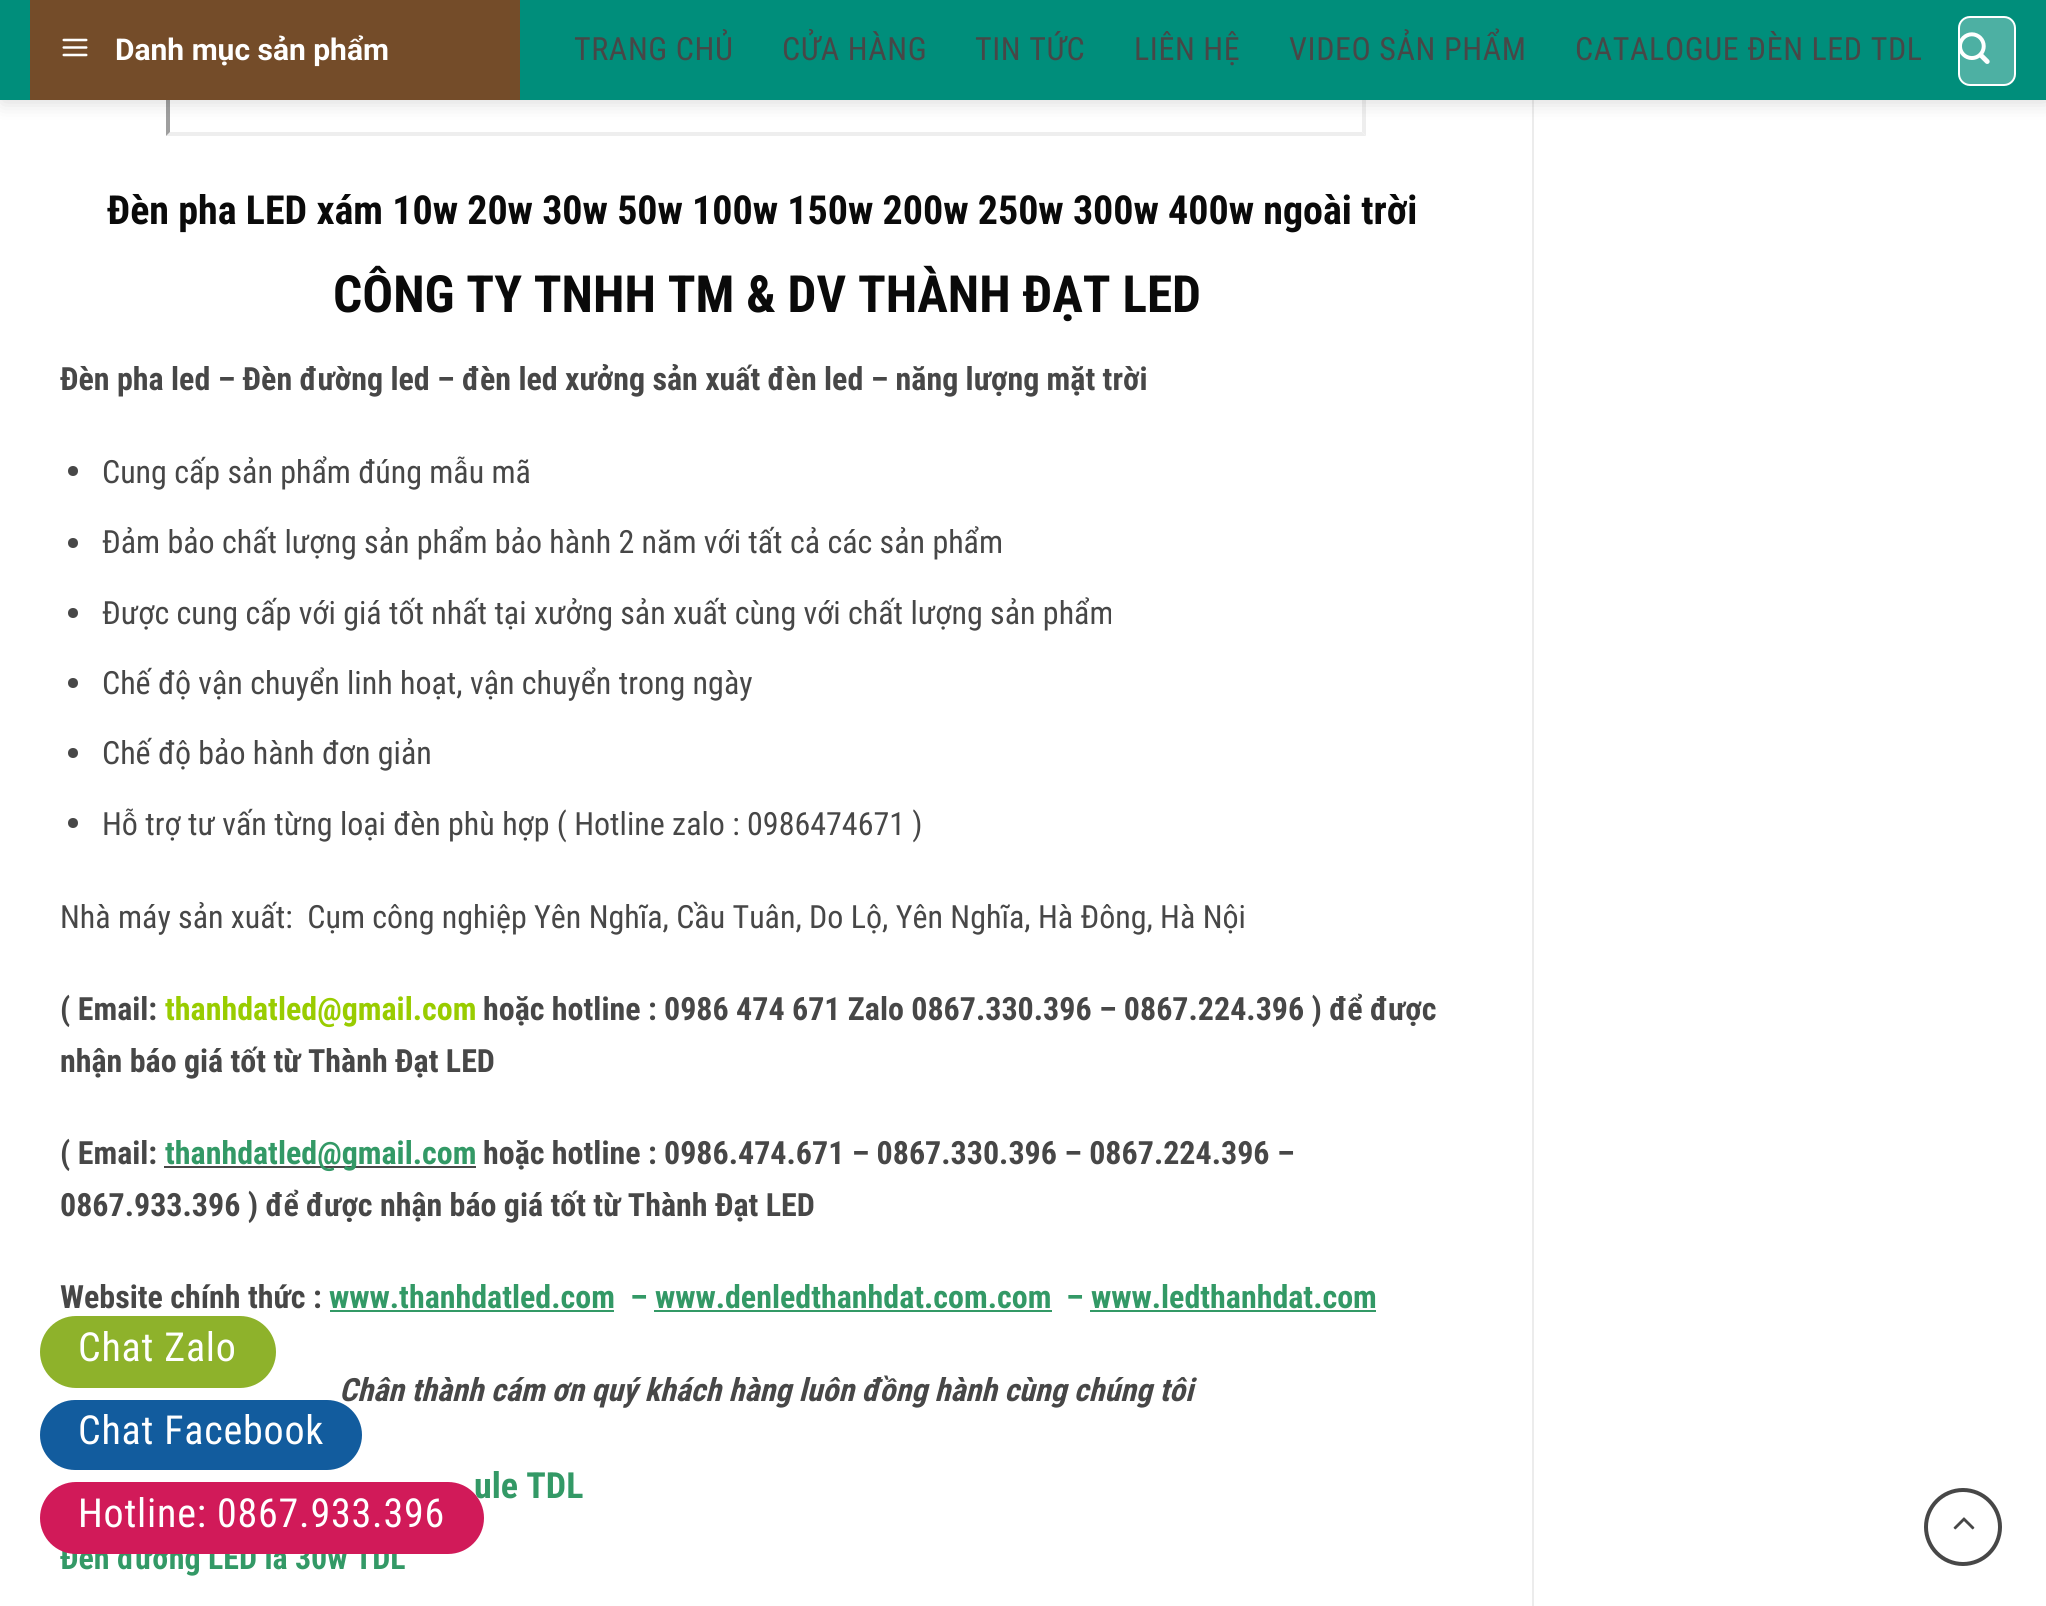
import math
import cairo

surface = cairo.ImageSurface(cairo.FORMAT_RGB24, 2046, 1606)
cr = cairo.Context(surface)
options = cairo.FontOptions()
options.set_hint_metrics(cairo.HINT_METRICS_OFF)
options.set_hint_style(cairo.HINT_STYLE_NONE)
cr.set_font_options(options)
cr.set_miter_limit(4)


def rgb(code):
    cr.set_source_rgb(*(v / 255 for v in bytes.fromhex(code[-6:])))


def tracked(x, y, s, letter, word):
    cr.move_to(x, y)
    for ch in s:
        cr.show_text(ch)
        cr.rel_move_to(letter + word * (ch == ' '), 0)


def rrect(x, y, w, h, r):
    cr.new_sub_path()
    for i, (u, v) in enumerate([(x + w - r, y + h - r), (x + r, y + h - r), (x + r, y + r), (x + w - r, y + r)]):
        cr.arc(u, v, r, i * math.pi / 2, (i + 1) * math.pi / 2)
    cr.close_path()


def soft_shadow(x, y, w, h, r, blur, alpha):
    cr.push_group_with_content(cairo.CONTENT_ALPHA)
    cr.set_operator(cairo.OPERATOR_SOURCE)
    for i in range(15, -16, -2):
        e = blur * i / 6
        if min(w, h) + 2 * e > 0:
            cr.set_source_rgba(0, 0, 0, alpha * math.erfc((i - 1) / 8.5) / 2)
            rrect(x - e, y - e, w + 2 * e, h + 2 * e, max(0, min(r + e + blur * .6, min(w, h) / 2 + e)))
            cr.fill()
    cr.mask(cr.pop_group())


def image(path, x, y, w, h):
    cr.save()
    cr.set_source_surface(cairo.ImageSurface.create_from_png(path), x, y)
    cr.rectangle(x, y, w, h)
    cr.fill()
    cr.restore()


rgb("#ffffff")
cr.paint()
rgb("#ececec")
cr.rectangle(1532, 100, 2, 1506)
cr.fill()
rgb("#eeeeee")
cr.new_path()
cr.move_to(1366, -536)
cr.line_to(1366, 136)
cr.line_to(1362, 132)
cr.line_to(1362, -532)
cr.close_path()
cr.fill()
cr.new_path()
cr.move_to(1366, 136)
cr.line_to(166, 136)
cr.line_to(170, 132)
cr.line_to(1362, 132)
cr.close_path()
cr.fill()
rgb("#9f9f9f")
cr.new_path()
cr.move_to(166, 136)
cr.line_to(166, -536)
cr.line_to(170, -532)
cr.line_to(170, 132)
cr.close_path()
cr.fill()
rgb("#000000")
soft_shadow(2, 2, 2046, 100, 0, 10, 0.15)
rgb("#008e7b")
cr.rectangle(0, 0, 2046, 100)
cr.fill()
rgb("#744c29")
cr.rectangle(30, 0, 490, 100)
cr.fill()
image("img/1.png", 62, 38, 26, 19)
rgb("#4db0a3")
rrect(1959, 17, 56, 68, 11)
cr.fill_preserve()
rgb("#ffffff")
cr.stroke()
image("img/2.png", 1960, 32, 30, 32)
rgb("#474747")
cr.arc(73, 471, 5, 0, 2 * math.pi)
cr.fill()
cr.arc(73, 543, 5, 0, 2 * math.pi)
cr.fill()
cr.arc(73, 613, 5, 0, 2 * math.pi)
cr.fill()
cr.arc(73, 683, 5, 0, 2 * math.pi)
cr.fill()
cr.arc(73, 753, 5, 0, 2 * math.pi)
cr.fill()
cr.arc(73, 823, 5, 0, 2 * math.pi)
cr.fill()
for x, y, w, h, color in [
    (164, 1166, 312, 2, "#474747"),
    (330, 1310, 284, 2, "#339966"),
    (654, 1310, 398, 2, "#339966"),
    (1090, 1310, 286, 2, "#339966"),
]:
    rgb(color)
    cr.rectangle(x, y, w, h)
    cr.fill()
rgb("#8eb22b")
rrect(40, 1316, 236, 72, 36)
cr.fill()
cr.arc(1963, 1527, 37, 0, 2 * math.pi)
rgb("#474747")
cr.set_line_width(4)
cr.stroke()
image("img/3.png", 1953, 1517, 22, 13)
cr.select_font_face("Roboto", cairo.FONT_SLANT_NORMAL, cairo.FONT_WEIGHT_BOLD)
cr.set_font_size(30)
rgb("#ffffff")
cr.move_to(115, 60)
cr.show_text("Danh mục sản phẩm")
cr.select_font_face("Roboto Condensed")
cr.set_font_size(32)
rgb("#474747")
for x, y, s in [
    (574, 60, "TRANG CHỦ"),
    (782, 60, "CỬA HÀNG"),
    (975, 60, "TIN TỨC"),
    (1134, 60, "LIÊN HỆ"),
    (1289, 60, "VIDEO SẢN PHẨM"),
    (1575, 60, "CATALOGUE ĐÈN LED TDL"),
]:
    tracked(x, y, s, 0.6, 0)
cr.select_font_face("Roboto Condensed", cairo.FONT_SLANT_NORMAL, cairo.FONT_WEIGHT_BOLD)
cr.set_font_size(40)
rgb("#0a0a0a")
cr.move_to(107, 224)
cr.show_text("Đèn pha LED xám 10w 20w 30w 50w 100w 150w 200w 250w 300w 400w ngoài trời")
cr.set_font_size(51.25)
cr.move_to(333, 312)
cr.show_text("CÔNG TY TNHH TM & DV THÀNH ĐẠT LED")
cr.set_font_size(32)
rgb("#474747")
cr.move_to(60, 390)
cr.show_text("Đèn pha led – Đèn đường led – đèn led xưởng sản xuất đèn led – năng lượng mặt trời")
cr.select_font_face("Roboto Condensed")
for x, y, s in [
    (102, 483, "Cung cấp sản phẩm đúng mẫu mã"),
    (102, 553, "Đảm bảo chất lượng sản phẩm bảo hành 2 năm với tất cả các sản phẩm"),
    (102, 624, "Được cung cấp với giá tốt nhất tại xưởng sản xuất cùng với chất lượng sản phẩm"),
    (102, 694, "Chế độ vận chuyển linh hoạt, vận chuyển trong ngày"),
    (102, 764, "Chế độ bảo hành đơn giản"),
    (102, 835, "Hỗ trợ tư vấn từng loại đèn phù hợp ( Hotline zalo : 0986474671 )"),
    (60, 928, "Nhà máy sản xuất:  Cụm công nghiệp Yên Nghĩa, Cầu Tuân, Do Lộ, Yên Nghĩa, Hà Đông, Hà Nội"),
]:
    cr.move_to(x, y)
    cr.show_text(s)
cr.select_font_face("Roboto Condensed", cairo.FONT_SLANT_NORMAL, cairo.FONT_WEIGHT_BOLD)
cr.move_to(60, 1020)
cr.show_text("( Email:")
rgb("#99cc00")
cr.move_to(165, 1020)
cr.show_text("thanhdatled@gmail.com")
rgb("#474747")
for x, y, s in [
    (483, 1020, "hoặc hotline : 0986 474 671 Zalo 0867.330.396 – 0867.224.396 ) để được"),
    (60, 1072, "nhận báo giá tốt từ Thành Đạt LED"),
    (60, 1164, "( Email:"),
]:
    cr.move_to(x, y)
    cr.show_text(s)
rgb("#339966")
cr.move_to(165, 1164)
cr.show_text("thanhdatled@gmail.com")
rgb("#474747")
for x, y, s in [
    (483, 1164, "hoặc hotline : 0986.474.671 – 0867.330.396 – 0867.224.396 –"),
    (60, 1216, "0867.933.396 ) để được nhận báo giá tốt từ Thành Đạt LED"),
    (60, 1308, "Website chính thức :"),
]:
    cr.move_to(x, y)
    cr.show_text(s)
rgb("#339966")
for x, y, s in [
    (329, 1308, "www.thanhdatled.com"),
    (630, 1308, "– www.denledthanhdat.com.com"),
    (1066, 1308, "– www.ledthanhdat.com"),
]:
    cr.move_to(x, y)
    cr.show_text(s)
cr.select_font_face("Roboto Condensed", cairo.FONT_SLANT_ITALIC, cairo.FONT_WEIGHT_BOLD)
rgb("#474747")
cr.move_to(339, 1401)
cr.show_text("Chân thành cám ơn quý khách hàng luôn đồng hành cùng chúng tôi")
cr.select_font_face("Roboto Condensed", cairo.FONT_SLANT_NORMAL, cairo.FONT_WEIGHT_BOLD)
cr.set_font_size(36)
rgb("#339966")
cr.move_to(474, 1498)
cr.show_text("ule TDL")
cr.set_font_size(32)
cr.move_to(60, 1569)
cr.show_text("Đèn đường LED lá 30w TDL")
cr.select_font_face("Roboto Condensed")
cr.set_font_size(40)
rgb("#ffffff")
tracked(78, 1361, "Chat Zalo", 0.8, 0)
rgb("#125c9e")
rrect(40, 1400, 322, 70, 35)
cr.fill()
rgb("#ffffff")
tracked(78, 1444, "Chat Facebook", 0.8, 0)
rgb("#d11a59")
rrect(40, 1482, 444, 72, 36)
cr.fill()
rgb("#ffffff")
tracked(78, 1527, "Hotline: 0867.933.396", 0.8, 0)
surface.write_to_png("page.png")
